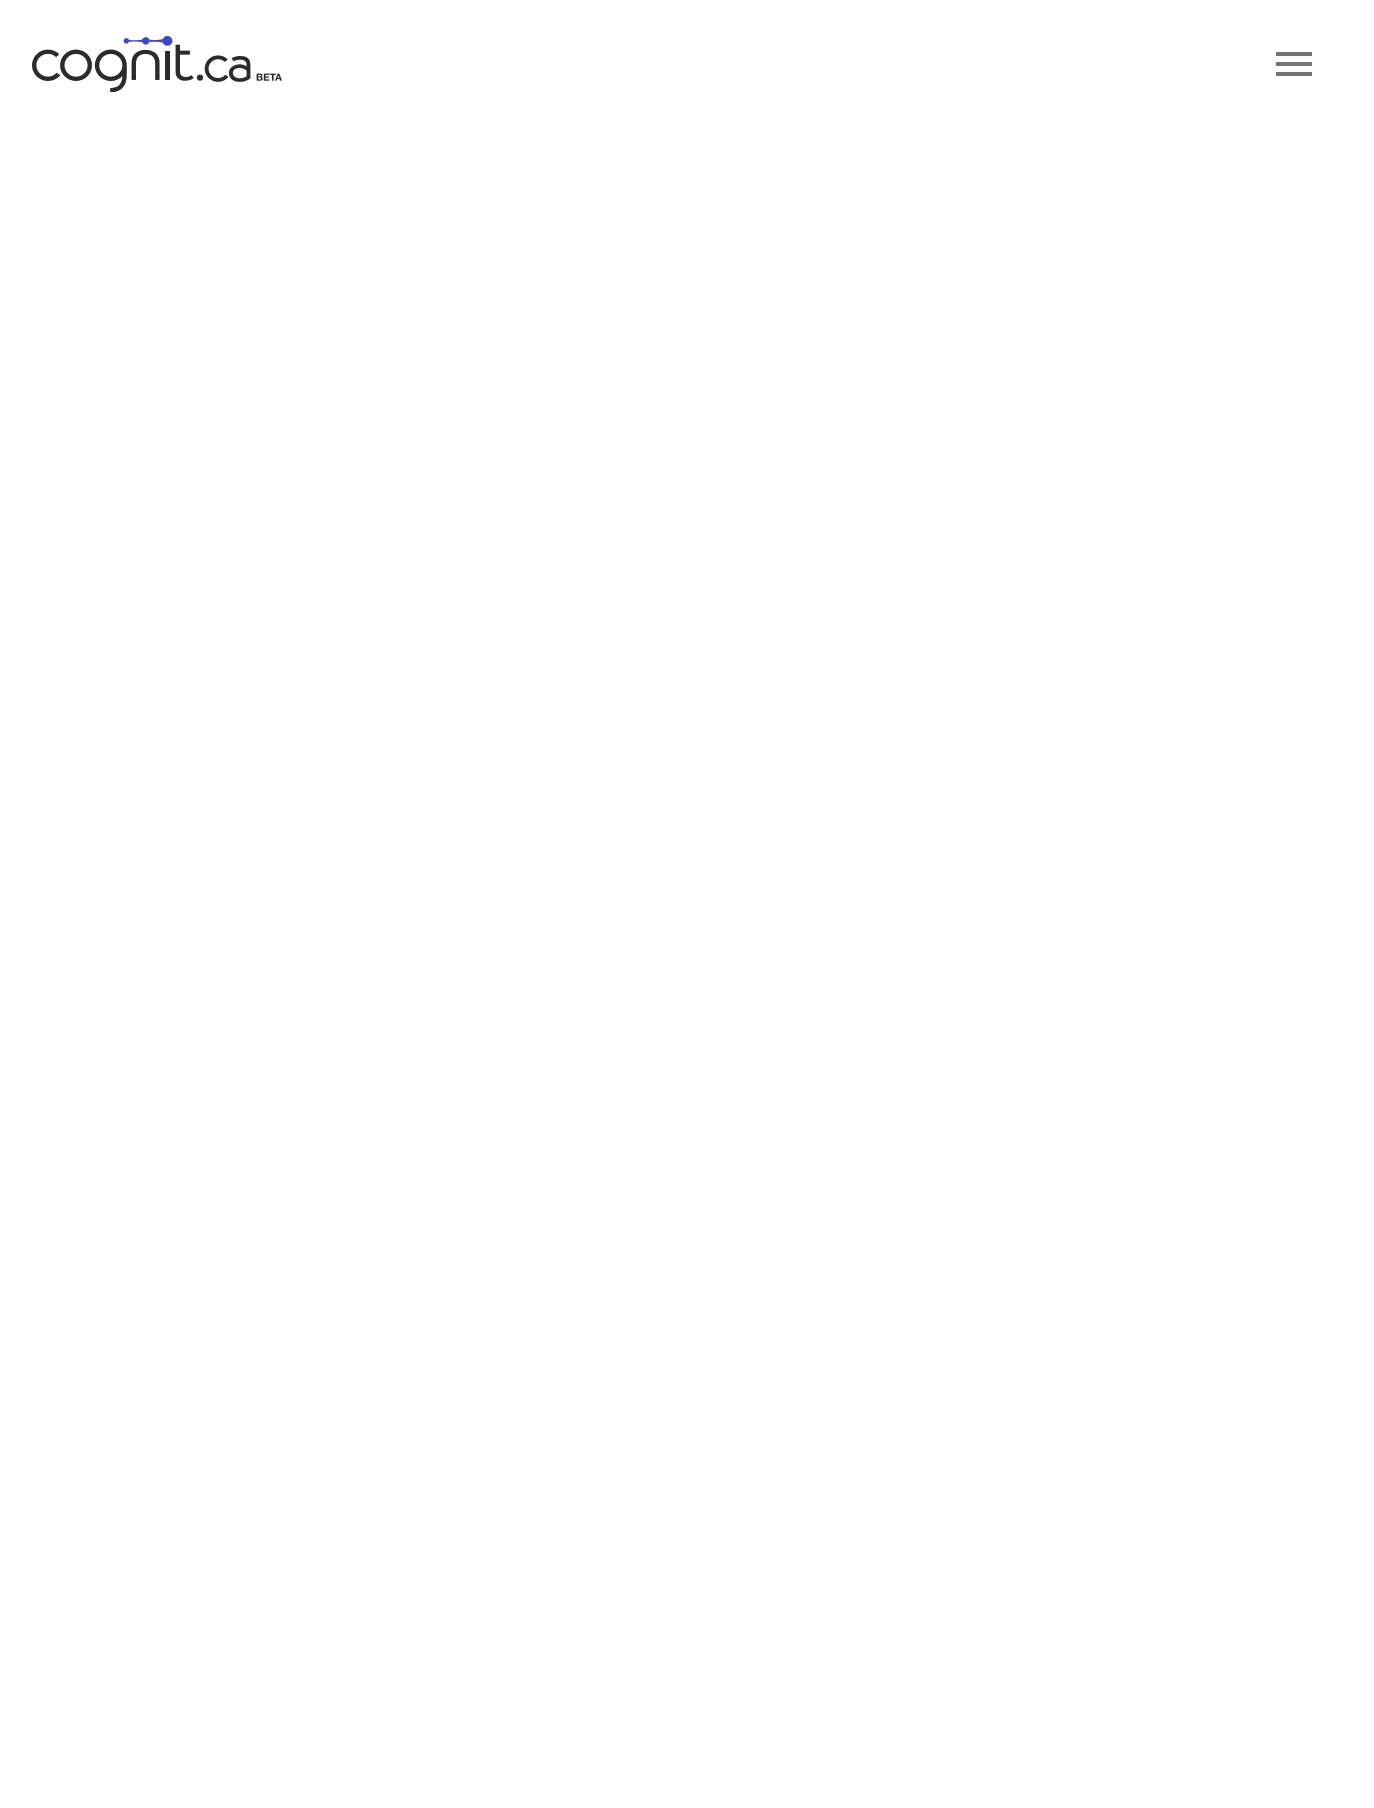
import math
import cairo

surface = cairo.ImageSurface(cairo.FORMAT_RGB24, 1374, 1808)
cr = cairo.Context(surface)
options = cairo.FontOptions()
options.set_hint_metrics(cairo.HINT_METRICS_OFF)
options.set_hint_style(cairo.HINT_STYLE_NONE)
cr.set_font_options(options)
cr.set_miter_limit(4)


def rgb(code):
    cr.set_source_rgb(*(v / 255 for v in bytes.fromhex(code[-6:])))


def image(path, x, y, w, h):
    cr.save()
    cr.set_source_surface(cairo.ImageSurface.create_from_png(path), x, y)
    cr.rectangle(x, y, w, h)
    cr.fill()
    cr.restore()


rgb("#ffffff")
cr.paint()
image("img/1.png", 32, 36, 250, 56)
image("img/2.png", 1276, 52, 36, 24)
surface.write_to_png("page.png")
